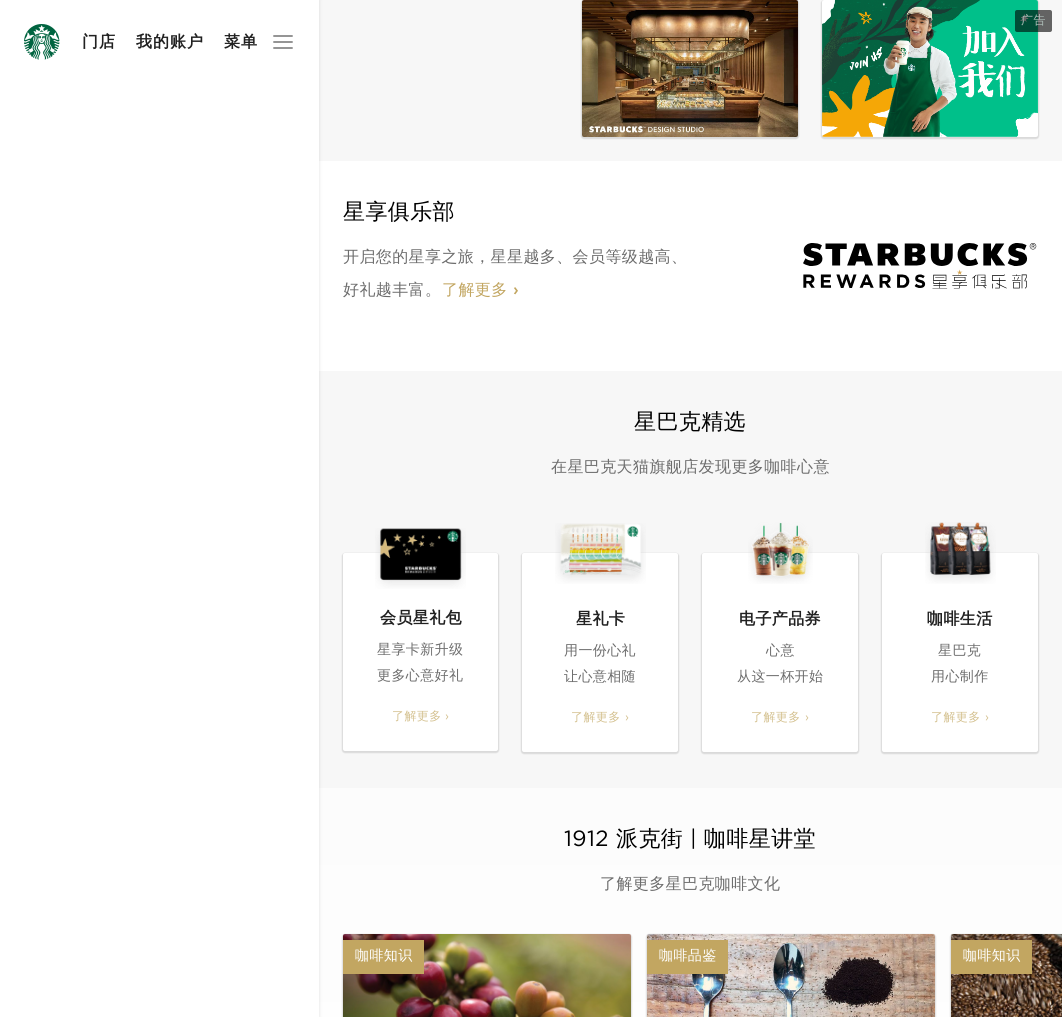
import math
import cairo

surface = cairo.ImageSurface(cairo.FORMAT_RGB24, 1062, 1017)
cr = cairo.Context(surface)
options = cairo.FontOptions()
options.set_hint_metrics(cairo.HINT_METRICS_OFF)
options.set_hint_style(cairo.HINT_STYLE_NONE)
cr.set_font_options(options)
cr.set_miter_limit(4)


def rgb(code):
    cr.set_source_rgb(*(v / 255 for v in bytes.fromhex(code[-6:])))


def tracked(x, y, s, letter, word):
    cr.move_to(x, y)
    for ch in s:
        cr.show_text(ch)
        cr.rel_move_to(letter + word * (ch == ' '), 0)


def rrect(x, y, w, h, r):
    cr.new_sub_path()
    for i, (u, v) in enumerate([(x + w - r, y + h - r), (x + r, y + h - r), (x + r, y + r), (x + w - r, y + r)]):
        cr.arc(u, v, r, i * math.pi / 2, (i + 1) * math.pi / 2)
    cr.close_path()


def soft_shadow(x, y, w, h, r, blur, alpha):
    cr.push_group_with_content(cairo.CONTENT_ALPHA)
    cr.set_operator(cairo.OPERATOR_SOURCE)
    for i in range(15, -16, -2):
        e = blur * i / 6
        if min(w, h) + 2 * e > 0:
            cr.set_source_rgba(0, 0, 0, alpha * math.erfc((i - 1) / 8.5) / 2)
            rrect(x - e, y - e, w + 2 * e, h + 2 * e, max(0, min(r + e + blur * .6, min(w, h) / 2 + e)))
            cr.fill()
    cr.mask(cr.pop_group())


def image(path, x, y, w, h):
    cr.save()
    cr.set_source_surface(cairo.ImageSurface.create_from_png(path), x, y)
    cr.rectangle(x, y, w, h)
    cr.fill()
    cr.restore()


rgb("#f7f7f7")
cr.paint()
rgb("#ffffff")
cr.rectangle(319, 161, 743, 210)
cr.fill()
gradient = cairo.LinearGradient(691, 788, 691, 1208)
gradient.add_color_stop_rgba(0, 0.988, 0.988, 0.988, 1)
gradient.add_color_stop_rgba(1, 1, 1, 1, 1)
cr.set_source(gradient)
cr.rectangle(319, 788, 743, 229)
cr.fill()
rgb("#000000")
soft_shadow(0, 0, 319, 1017, 0, 2, 0.12)
rgb("#ffffff")
cr.rectangle(0, 0, 319, 1017)
cr.fill()
image("img/1.png", 24, 24, 36, 36)
cr.new_path()
cr.move_to(274, 42)
cr.line_to(292, 42)
cr.move_to(274, 36)
cr.line_to(292, 36)
cr.move_to(274, 48)
cr.line_to(292, 48)
rgb("#858585")
cr.set_line_width(1.8)
cr.set_line_cap(cairo.LINE_CAP_ROUND)
cr.set_line_join(cairo.LINE_JOIN_ROUND)
cr.stroke()
rgb("#000000")
soft_shadow(581, 0, 218, 139, 3, 0.5, 0.12)
image("img/2.png", 582, 0, 216, 137)
soft_shadow(821, 0, 218, 139, 3, 0.5, 0.12)
image("img/3.png", 822, 0, 216, 137)
cr.set_source_rgba(0, 0, 0, 0.6)
rrect(1015, 10, 37, 22, 2)
cr.fill()
image("img/4.png", 803, 243, 234, 46)
rgb("#000000")
soft_shadow(342, 553, 157, 200, 3, 0.5, 0.12)
rgb("#ffffff")
rrect(343, 553, 155, 198, 2)
cr.fill()
image("img/5.png", 375, 528, 91, 61)
rgb("#000000")
soft_shadow(521, 553, 158, 201, 3, 0.5, 0.12)
rgb("#ffffff")
rrect(522, 553, 156, 199, 2)
cr.fill()
image("img/6.png", 555, 523, 91, 61)
rgb("#000000")
soft_shadow(701, 553, 158, 201, 3, 0.5, 0.12)
rgb("#ffffff")
rrect(702, 553, 156, 199, 2)
cr.fill()
image("img/7.png", 748, 522, 65, 62)
rgb("#000000")
soft_shadow(881, 553, 158, 201, 3, 0.5, 0.12)
rgb("#ffffff")
rrect(882, 553, 156, 199, 2)
cr.fill()
image("img/8.png", 925, 522, 71, 62)
rgb("#000000")
soft_shadow(342, 934, 290, 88, 3, 0.5, 0.12)
image("img/9.png", 343, 934, 288, 83)
rgb("#c2a661")
cr.rectangle(343, 940, 81, 34)
cr.fill()
rgb("#000000")
soft_shadow(646, 934, 290, 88, 3, 0.5, 0.12)
image("img/10.png", 647, 934, 288, 83)
rgb("#c2a661")
cr.rectangle(647, 940, 81, 34)
cr.fill()
rgb("#000000")
soft_shadow(950, 934, 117, 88, 3, 0.5, 0.12)
image("img/11.png", 951, 934, 111, 83)
rgb("#c2a661")
cr.rectangle(951, 940, 81, 34)
cr.fill()
cr.select_font_face("WenQuanYi Zen Hei", cairo.FONT_SLANT_NORMAL, cairo.FONT_WEIGHT_BOLD)
cr.set_font_size(16)
rgb("#212121")
for x, y, s in [
    (82, 47, "门店"),
    (136, 47, "我的账户"),
    (224, 47, "菜单"),
]:
    tracked(x, y, s, 1, 0)
cr.select_font_face("WenQuanYi Zen Hei Medium")
cr.set_font_size(12)
rgb("#acbcb7")
tracked(1021, 24, "广告", 0.4, 0)
cr.set_font_size(22)
rgb("#000000")
tracked(343, 219, "星享俱乐部", 0.4, 0)
cr.set_font_size(16)
rgb("#6d6d6d")
tracked(343, 262, "开启您的星享之旅，星星越多、会员等级越高、", 0.4, 0)
tracked(343, 295, "好礼越丰富。", 0.4, 0)
rgb("#c2a661")
tracked(442, 295, "了解更多", 0.4, 0)
cr.select_font_face("Gotham Medium")
tracked(513, 295, "›", 0.4, 0)
cr.select_font_face("WenQuanYi Zen Hei Medium")
cr.set_font_size(22)
rgb("#000000")
tracked(634, 429, "星巴克精选", 0.4, 0)
cr.set_font_size(16)
rgb("#6d6d6d")
tracked(551, 472, "在星巴克天猫旗舰店发现更多咖啡心意", 0.4, 0)
cr.select_font_face("WenQuanYi Zen Hei", cairo.FONT_SLANT_NORMAL, cairo.FONT_WEIGHT_BOLD)
rgb("#212121")
tracked(380, 623, "会员星礼包", 0.4, 0)
cr.select_font_face("WenQuanYi Zen Hei Medium")
cr.set_font_size(14)
rgb("#6d6d6d")
tracked(377, 654, "星享卡新升级", 0.4, 0)
tracked(377, 680, "更多心意好礼", 0.4, 0)
cr.set_font_size(12)
rgb("#d4c190")
tracked(392, 720, "了解更多", 0.4, 0)
cr.select_font_face("Gotham")
tracked(445, 720, "›", 0.4, 0)
cr.select_font_face("WenQuanYi Zen Hei", cairo.FONT_SLANT_NORMAL, cairo.FONT_WEIGHT_BOLD)
cr.set_font_size(16)
rgb("#212121")
tracked(576, 624, "星礼卡", 0.4, 0)
cr.select_font_face("WenQuanYi Zen Hei Medium")
cr.set_font_size(14)
rgb("#6d6d6d")
tracked(564, 655, "用一份心礼", 0.4, 0)
tracked(564, 681, "让心意相随", 0.4, 0)
cr.set_font_size(12)
rgb("#d4c190")
tracked(571, 721, "了解更多", 0.4, 0)
cr.select_font_face("Gotham")
tracked(625, 721, "›", 0.4, 0)
cr.select_font_face("WenQuanYi Zen Hei", cairo.FONT_SLANT_NORMAL, cairo.FONT_WEIGHT_BOLD)
cr.set_font_size(16)
rgb("#212121")
tracked(739, 624, "电子产品券", 0.4, 0)
cr.select_font_face("WenQuanYi Zen Hei Medium")
cr.set_font_size(14)
rgb("#6d6d6d")
tracked(766, 655, "心意", 0.4, 0)
tracked(737, 681, "从这一杯开始", 0.4, 0)
cr.set_font_size(12)
rgb("#d4c190")
tracked(751, 721, "了解更多", 0.4, 0)
cr.select_font_face("Gotham")
tracked(805, 721, "›", 0.4, 0)
cr.select_font_face("WenQuanYi Zen Hei", cairo.FONT_SLANT_NORMAL, cairo.FONT_WEIGHT_BOLD)
cr.set_font_size(16)
rgb("#212121")
tracked(927, 624, "咖啡生活", 0.4, 0)
cr.select_font_face("WenQuanYi Zen Hei Medium")
cr.set_font_size(14)
rgb("#6d6d6d")
tracked(938, 655, "星巴克", 0.4, 0)
tracked(931, 681, "用心制作", 0.4, 0)
cr.set_font_size(12)
rgb("#d4c190")
tracked(931, 721, "了解更多", 0.4, 0)
cr.select_font_face("Gotham")
tracked(985, 721, "›", 0.4, 0)
cr.set_font_size(22)
rgb("#000000")
tracked(564, 846, "1912", 0.4, 0)
cr.select_font_face("WenQuanYi Zen Hei Medium")
tracked(616, 846, "派克街", 0.4, 0)
cr.select_font_face("Gotham")
tracked(690, 846, "|", 0.4, 0)
cr.select_font_face("WenQuanYi Zen Hei Medium")
tracked(704, 846, "咖啡星讲堂", 0.4, 0)
cr.set_font_size(16)
rgb("#6d6d6d")
tracked(600, 889, "了解更多星巴克咖啡文化", 0.4, 0)
cr.set_font_size(14)
rgb("#ffffff")
for x, y, s in [
    (355, 960, "咖啡知识"),
    (659, 960, "咖啡品鉴"),
    (963, 960, "咖啡知识"),
]:
    tracked(x, y, s, 0.4, 0)
surface.write_to_png("page.png")
